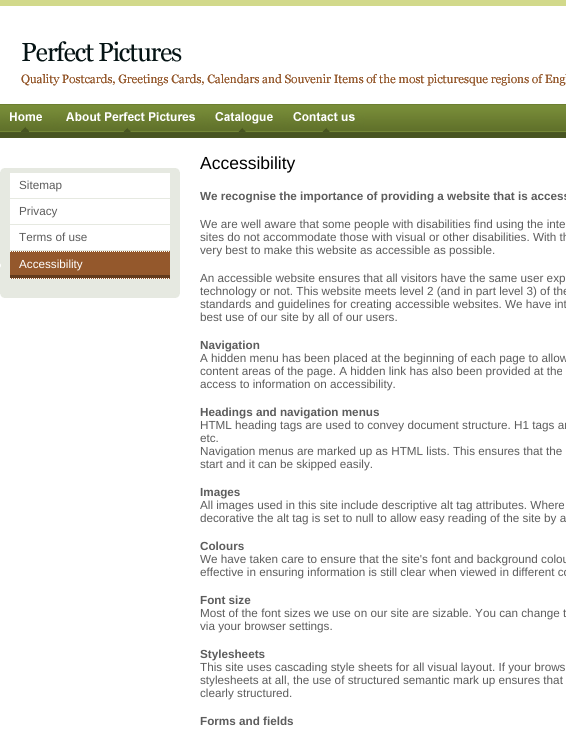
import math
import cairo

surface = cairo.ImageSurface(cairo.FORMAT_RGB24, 566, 731)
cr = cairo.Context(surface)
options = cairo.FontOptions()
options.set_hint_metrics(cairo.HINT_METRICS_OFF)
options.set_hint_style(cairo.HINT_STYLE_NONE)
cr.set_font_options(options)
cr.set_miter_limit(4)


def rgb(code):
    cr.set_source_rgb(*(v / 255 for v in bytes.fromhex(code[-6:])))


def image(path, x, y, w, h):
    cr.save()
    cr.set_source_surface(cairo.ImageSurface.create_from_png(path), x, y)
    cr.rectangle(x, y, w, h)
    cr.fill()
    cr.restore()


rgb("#ffffff")
cr.paint()
rgb("#d2d98b")
cr.rectangle(0, 0, 566, 6)
cr.fill()
image("img/1.png", 22, 41, 160, 21)
image("img/2.png", 21, 74, 545, 12)
image("img/3.png", 0, 104, 566, 34)
image("img/4.png", 0, 104, 54, 28)
image("img/5.png", 54, 104, 151, 28)
image("img/6.png", 205, 104, 78, 28)
image("img/7.png", 283, 104, 82, 28)
rgb("#e6e9e1")
cr.rectangle(0, 168, 180, 130)
cr.fill()
image("img/8.png", 176, 168, 4, 4)
image("img/9.png", 0, 168, 4, 4)
for x, y, w, h, color in [
    (10, 173, 160, 25, "#ffffff"),
    (10, 199, 160, 25, "#ffffff"),
    (10, 225, 160, 25, "#ffffff"),
    (10, 251, 160, 28, "#94582c"),
    (10, 275, 160, 3, "#613a1d"),
]:
    rgb(color)
    cr.rectangle(x, y, w, h)
    cr.fill()
cr.new_path()
cr.move_to(10, 251.5)
cr.line_to(170, 251.5)
rgb("#ffffff")
cr.set_line_width(1)
cr.set_dash([1, 1])
cr.stroke()
cr.new_path()
cr.move_to(10, 278.5)
cr.line_to(170, 278.5)
cr.stroke()
cr.arc(-1.5, 265.5, 2, 0, 2 * math.pi)
cr.set_dash([])
cr.stroke()
image("img/10.png", 176, 294, 4, 4)
image("img/11.png", 0, 294, 4, 4)
cr.select_font_face("Liberation Sans")
cr.set_font_size(11.7)
rgb("#5c5c5c")
for x, y, s in [
    (19, 189, "Sitemap"),
    (19, 215, "Privacy"),
    (19, 241, "Terms of use"),
]:
    cr.move_to(x, y)
    cr.show_text(s)
rgb("#ffffff")
cr.move_to(19, 268)
cr.show_text("Accessibility")
cr.set_font_size(17.5)
rgb("#000000")
cr.move_to(200, 169)
cr.show_text("Accessibility")
cr.select_font_face("Liberation Sans", cairo.FONT_SLANT_NORMAL, cairo.FONT_WEIGHT_BOLD)
cr.set_font_size(11.7)
rgb("#5c5c5c")
cr.move_to(200, 200)
cr.show_text("We recognise the importance of providing a website that is access")
cr.select_font_face("Liberation Sans")
for x, y, s in [
    (200, 228, "We are well aware that some people with disabilities find using the inte"),
    (200, 241, "sites do not accommodate those with visual or other disabilities. With th"),
    (200, 254, "very best to make this website as accessible as possible."),
    (200, 282, "An accessible website ensures that all visitors have the same user exp"),
    (200, 295, "technology or not. This website meets level 2 (and in part level 3) of the"),
    (200, 308, "standards and guidelines for creating accessible websites. We have int"),
    (200, 321, "best use of our site by all of our users."),
]:
    cr.move_to(x, y)
    cr.show_text(s)
cr.select_font_face("Liberation Sans", cairo.FONT_SLANT_NORMAL, cairo.FONT_WEIGHT_BOLD)
cr.move_to(200, 349)
cr.show_text("Navigation")
cr.select_font_face("Liberation Sans")
for x, y, s in [
    (200, 362, "A hidden menu has been placed at the beginning of each page to allow"),
    (200, 375, "content areas of the page. A hidden link has also been provided at the"),
    (200, 388, "access to information on accessibility."),
]:
    cr.move_to(x, y)
    cr.show_text(s)
cr.select_font_face("Liberation Sans", cairo.FONT_SLANT_NORMAL, cairo.FONT_WEIGHT_BOLD)
cr.move_to(200, 416)
cr.show_text("Headings and navigation menus")
cr.select_font_face("Liberation Sans")
for x, y, s in [
    (200, 429, "HTML heading tags are used to convey document structure. H1 tags ar"),
    (200, 442, "etc."),
    (200, 455, "Navigation menus are marked up as HTML lists. This ensures that the"),
    (200, 468, "start and it can be skipped easily."),
]:
    cr.move_to(x, y)
    cr.show_text(s)
cr.select_font_face("Liberation Sans", cairo.FONT_SLANT_NORMAL, cairo.FONT_WEIGHT_BOLD)
cr.move_to(200, 496)
cr.show_text("Images")
cr.select_font_face("Liberation Sans")
cr.move_to(200, 509)
cr.show_text("All images used in this site include descriptive alt tag attributes. Where")
cr.move_to(200, 522)
cr.show_text("decorative the alt tag is set to null to allow easy reading of the site by a")
cr.select_font_face("Liberation Sans", cairo.FONT_SLANT_NORMAL, cairo.FONT_WEIGHT_BOLD)
cr.move_to(200, 550)
cr.show_text("Colours")
cr.select_font_face("Liberation Sans")
cr.move_to(200, 563)
cr.show_text("We have taken care to ensure that the site's font and background colou")
cr.move_to(200, 576)
cr.show_text("effective in ensuring information is still clear when viewed in different co")
cr.select_font_face("Liberation Sans", cairo.FONT_SLANT_NORMAL, cairo.FONT_WEIGHT_BOLD)
cr.move_to(200, 604)
cr.show_text("Font size")
cr.select_font_face("Liberation Sans")
cr.move_to(200, 617)
cr.show_text("Most of the font sizes we use on our site are sizable. You can change t")
cr.move_to(200, 630)
cr.show_text("via your browser settings.")
cr.select_font_face("Liberation Sans", cairo.FONT_SLANT_NORMAL, cairo.FONT_WEIGHT_BOLD)
cr.move_to(200, 658)
cr.show_text("Stylesheets")
cr.select_font_face("Liberation Sans")
for x, y, s in [
    (200, 671, "This site uses cascading style sheets for all visual layout. If your brows"),
    (200, 684, "stylesheets at all, the use of structured semantic mark up ensures that"),
    (200, 697, "clearly structured."),
]:
    cr.move_to(x, y)
    cr.show_text(s)
cr.select_font_face("Liberation Sans", cairo.FONT_SLANT_NORMAL, cairo.FONT_WEIGHT_BOLD)
cr.move_to(200, 725)
cr.show_text("Forms and fields")
surface.write_to_png("page.png")
